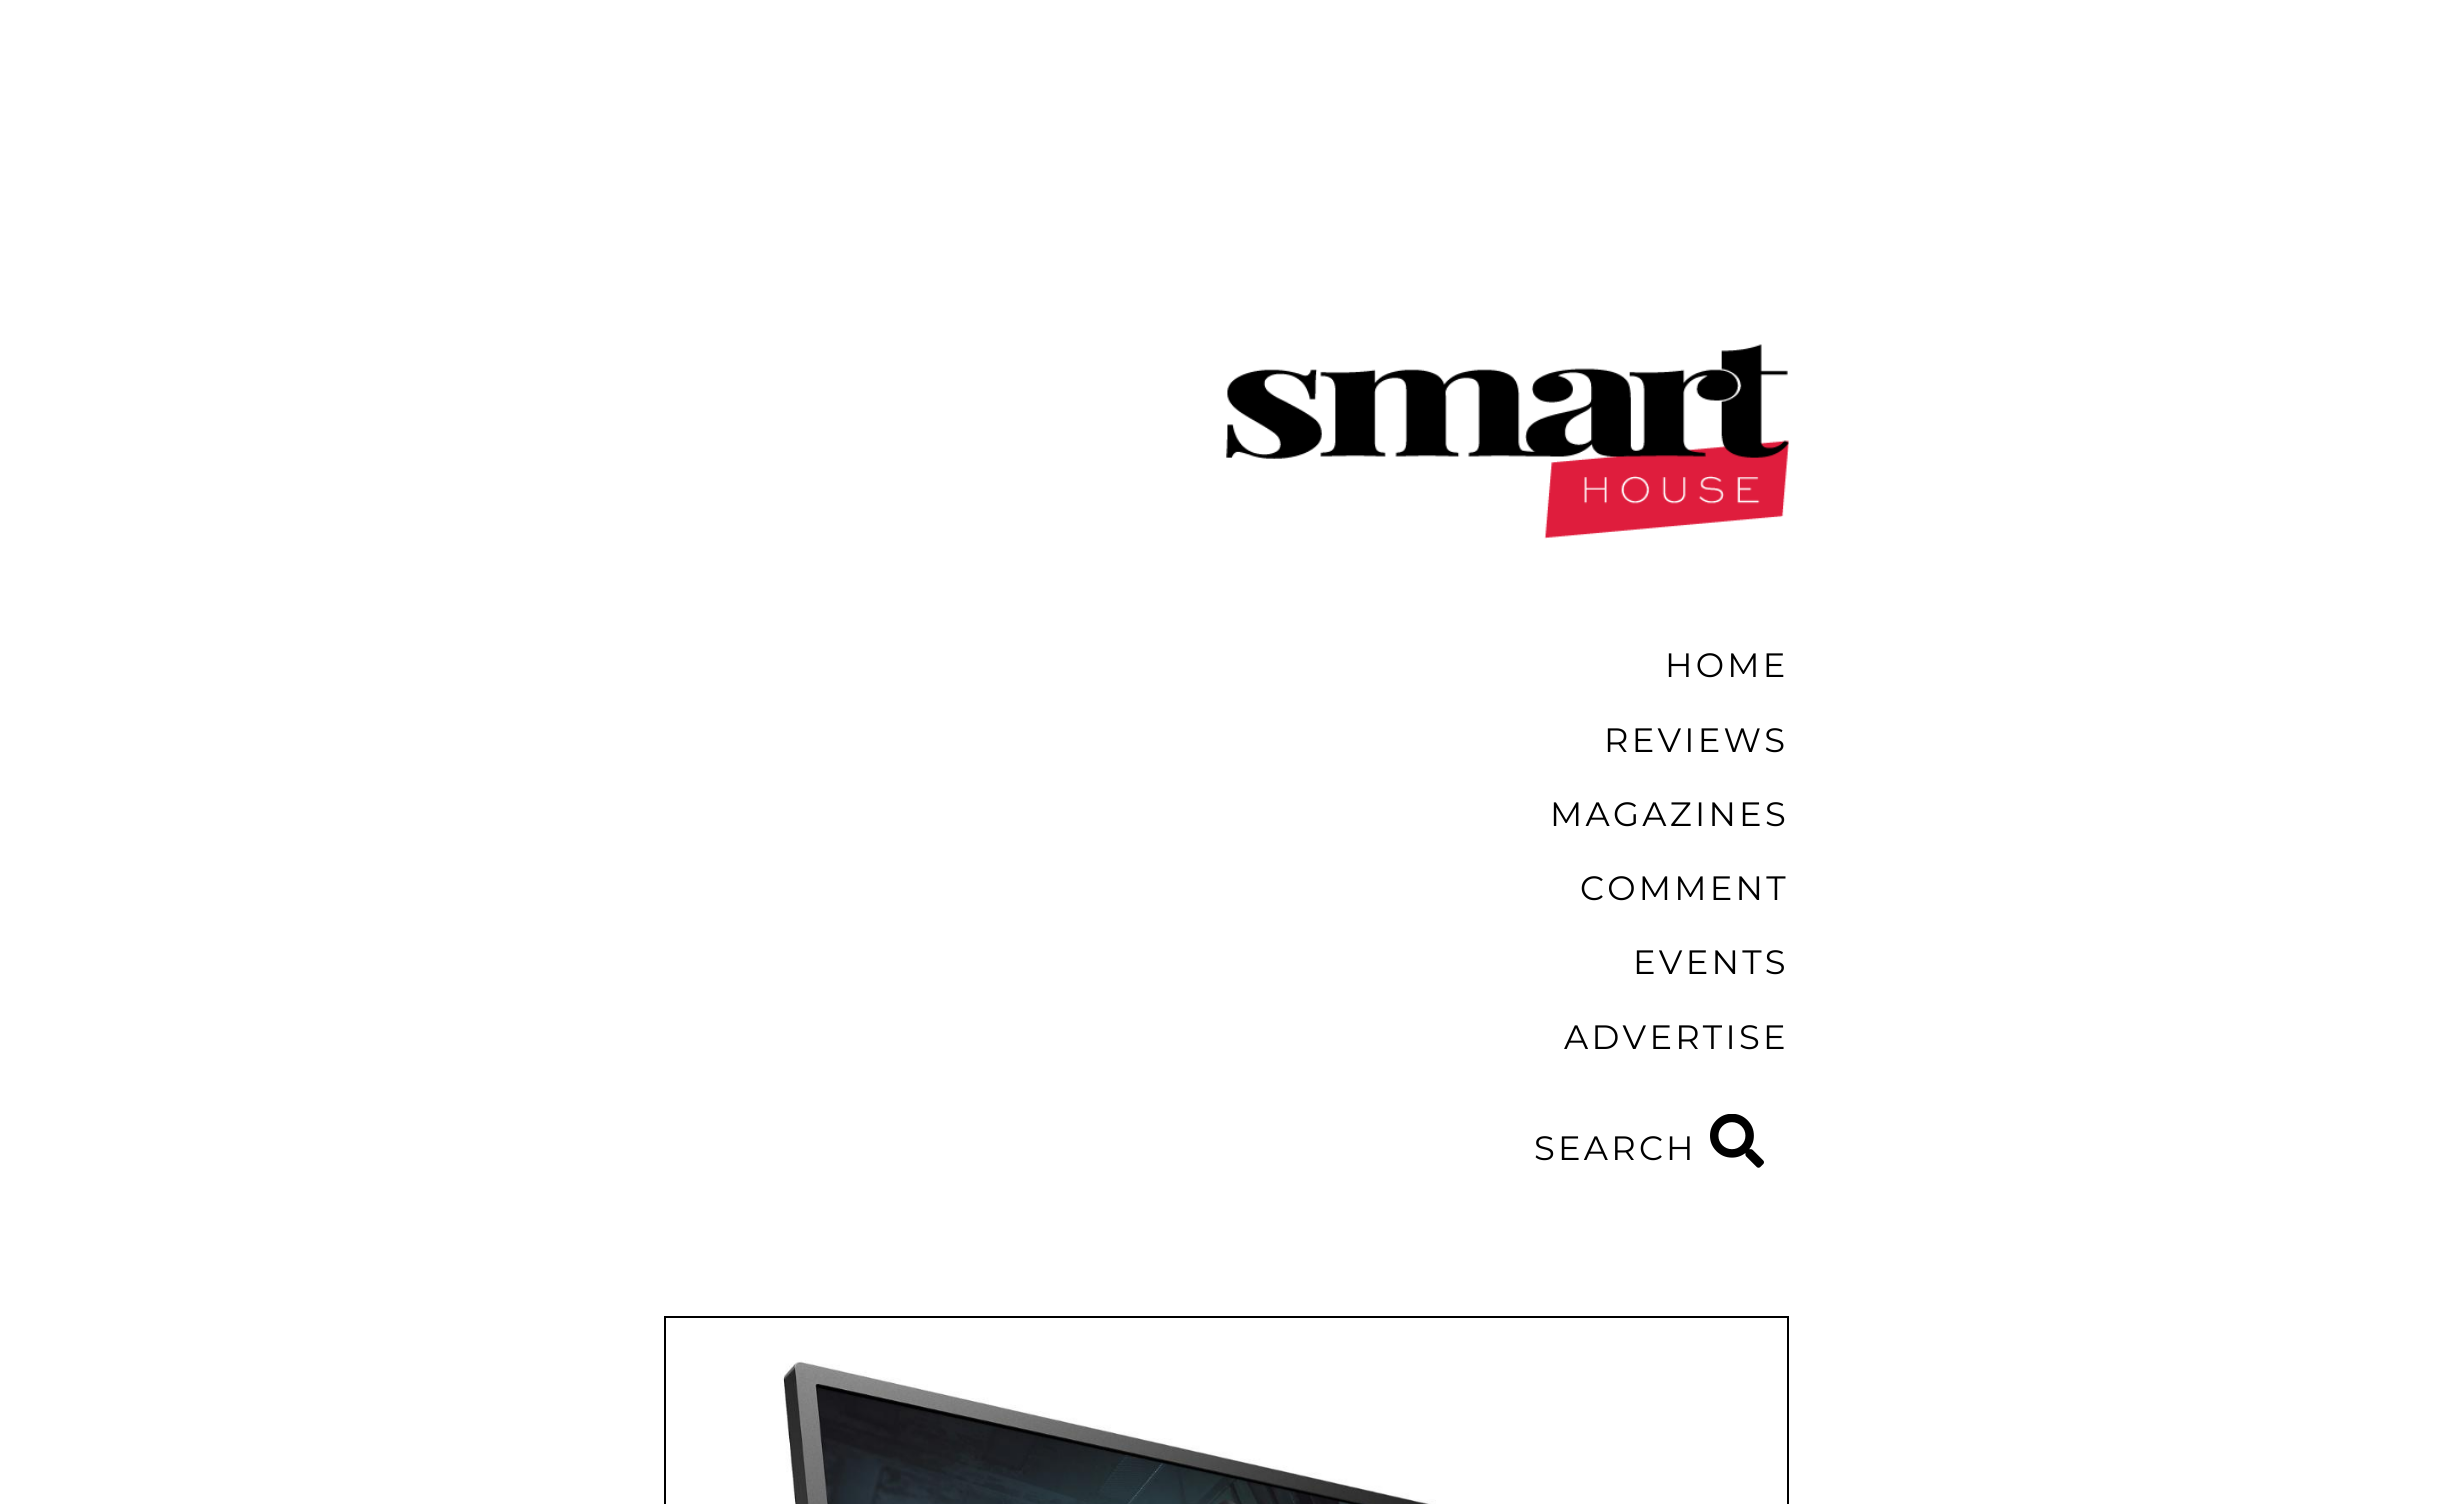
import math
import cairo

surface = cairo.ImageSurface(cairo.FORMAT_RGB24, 2451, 1504)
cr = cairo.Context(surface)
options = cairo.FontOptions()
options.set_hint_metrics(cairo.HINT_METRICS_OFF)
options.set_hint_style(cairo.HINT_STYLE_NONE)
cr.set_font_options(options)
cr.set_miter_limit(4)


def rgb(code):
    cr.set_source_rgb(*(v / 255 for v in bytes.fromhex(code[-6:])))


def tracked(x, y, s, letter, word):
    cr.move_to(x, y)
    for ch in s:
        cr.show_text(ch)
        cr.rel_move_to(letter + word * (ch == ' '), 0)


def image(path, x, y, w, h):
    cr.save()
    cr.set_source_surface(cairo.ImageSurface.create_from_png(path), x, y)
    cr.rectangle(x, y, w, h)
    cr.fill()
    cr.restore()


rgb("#ffffff")
cr.paint()
image("img/1.png", 1226, 344, 563, 195)
image("img/2.png", 1710, 1114, 54, 54)
cr.rectangle(665, 1317, 1123, 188)
rgb("#000000")
cr.stroke()
image("img/3.png", 780, 1360, 656, 144)
cr.select_font_face("Montserrat")
cr.set_font_size(33.75)
for x, y, s in [
    (1665, 677, "HOME"),
    (1604, 752, "REVIEWS"),
    (1550, 826, "MAGAZINES"),
    (1580, 900, "COMMENT"),
    (1633, 974, "EVENTS"),
    (1564, 1049, "ADVERTISE"),
    (1534, 1160, "SEARCH"),
]:
    tracked(x, y, s, 3.25, 0)
surface.write_to_png("page.png")
